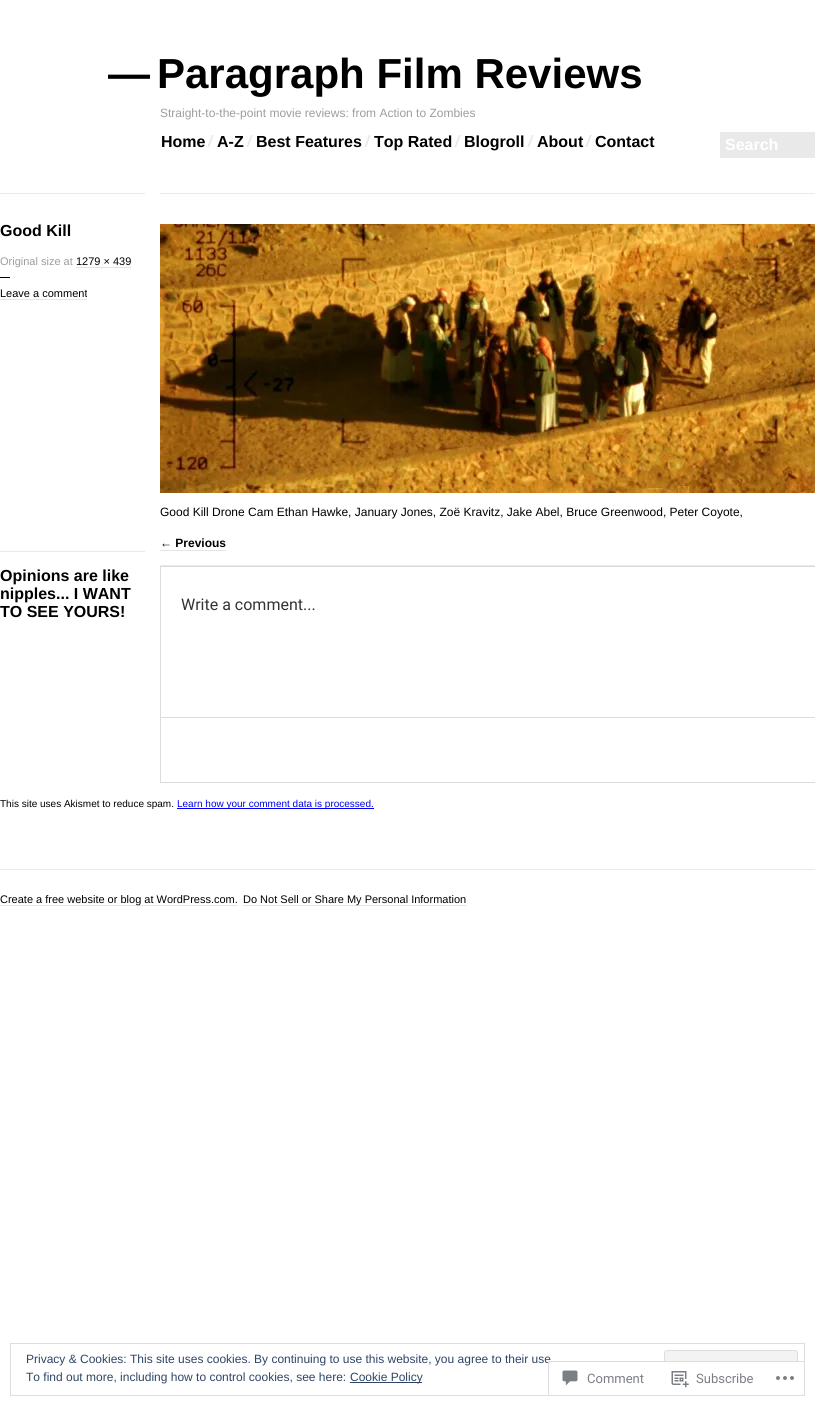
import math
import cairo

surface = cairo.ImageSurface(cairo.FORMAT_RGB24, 815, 1406)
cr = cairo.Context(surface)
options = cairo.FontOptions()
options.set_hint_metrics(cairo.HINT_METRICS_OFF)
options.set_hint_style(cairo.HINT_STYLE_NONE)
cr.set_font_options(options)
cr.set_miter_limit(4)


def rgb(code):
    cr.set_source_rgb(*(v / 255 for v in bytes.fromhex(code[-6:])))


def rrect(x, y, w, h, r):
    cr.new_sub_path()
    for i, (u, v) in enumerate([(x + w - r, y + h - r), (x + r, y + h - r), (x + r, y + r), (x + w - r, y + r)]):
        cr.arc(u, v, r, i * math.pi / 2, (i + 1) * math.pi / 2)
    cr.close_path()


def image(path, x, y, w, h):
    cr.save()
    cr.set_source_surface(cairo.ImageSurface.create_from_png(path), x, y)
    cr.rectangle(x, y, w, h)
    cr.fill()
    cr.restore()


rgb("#ffffff")
cr.paint()
image("img/1.png", 207, 135, 7, 12)
image("img/1.png", 246, 135, 7, 12)
image("img/1.png", 364, 135, 7, 12)
image("img/1.png", 454, 135, 7, 12)
image("img/1.png", 527, 135, 7, 12)
image("img/1.png", 585, 135, 7, 12)
for x, y, w, h, color in [
    (720, 132, 95, 26, "#e9e9e9"),
    (0, 193, 145, 1, "#e9e9e9"),
    (76, 267, 55, 1, "#e5e5e5"),
    (0, 277, 10, 1, "#000000"),
    (0, 299, 87, 1, "#e5e5e5"),
    (160, 193, 655, 1, "#e9e9e9"),
]:
    rgb(color)
    cr.rectangle(x, y, w, h)
    cr.fill()
image("img/2.png", 160, 224, 655, 269)
for x, y, w, h, color in [
    (160, 550, 66, 1, "#e5e5e5"),
    (160, 565, 655, 1, "#e9e9e9"),
    (0, 551, 145, 1, "#e9e9e9"),
]:
    rgb(color)
    cr.rectangle(x, y, w, h)
    cr.fill()
cr.rectangle(160.5, 566.5, 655, 216)
rgb("#dcdcde")
cr.set_line_width(1)
cr.stroke()
for x, y, w, h, color in [
    (161, 717, 654, 1, "#dcdcde"),
    (177, 808, 197, 1, "#0000ee"),
    (0, 869, 815, 1, "#e9e9e9"),
    (0, 905, 238, 1, "#e5e5e5"),
    (243, 905, 223, 1, "#e5e5e5"),
]:
    rgb(color)
    cr.rectangle(x, y, w, h)
    cr.fill()
cr.rectangle(10.5, 1343.5, 794, 52)
rgb("#dedede")
cr.stroke()
rgb("#f3f3f3")
rrect(664.5, 1350.5, 133, 38, 2.5)
cr.fill_preserve()
rgb("#dedede")
cr.stroke()
rgb("#2e4467")
cr.rectangle(350, 1382, 72, 1)
cr.fill()
cr.select_font_face("Liberation Sans", cairo.FONT_SLANT_NORMAL, cairo.FONT_WEIGHT_BOLD)
cr.set_font_size(42)
rgb("#000000")
cr.move_to(108, 88)
cr.show_text("—")
cr.move_to(157, 88)
cr.show_text("Paragraph Film Reviews")
cr.select_font_face("Liberation Sans")
cr.set_font_size(12)
rgb("#9d9d9d")
cr.move_to(160, 117)
cr.show_text("Straight-to-the-point movie reviews: from Action to Zombies")
cr.select_font_face("Liberation Sans", cairo.FONT_SLANT_NORMAL, cairo.FONT_WEIGHT_BOLD)
cr.set_font_size(16)
rgb("#000000")
for x, y, s in [
    (161, 147, "Home"),
    (217, 147, "A-Z"),
    (256, 147, "Best Features"),
    (374, 147, "Top Rated"),
    (464, 147, "Blogroll"),
    (537, 147, "About"),
    (595, 147, "Contact"),
]:
    cr.move_to(x, y)
    cr.show_text(s)
rgb("#ffffff")
cr.move_to(725, 150)
cr.show_text("Search")
rgb("#000000")
cr.move_to(0, 236)
cr.show_text("Good Kill")
cr.select_font_face("Liberation Sans")
cr.set_font_size(11)
rgb("#9d9d9d")
cr.move_to(0, 265)
cr.show_text("Original size at")
rgb("#000000")
cr.move_to(76, 265)
cr.show_text("1279 × 439")
cr.move_to(0, 297)
cr.show_text("Leave a comment")
cr.set_font_size(12)
cr.move_to(160, 516)
cr.show_text("Good Kill Drone Cam Ethan Hawke, January Jones, Zoë Kravitz, Jake Abel, Bruce Greenwood, Peter Coyote,")
cr.select_font_face("Liberation Sans", cairo.FONT_SLANT_NORMAL, cairo.FONT_WEIGHT_BOLD)
cr.move_to(160, 547)
cr.show_text("← Previous")
cr.set_font_size(16)
for x, y, s in [
    (0, 581, "Opinions are like"),
    (0, 599, "nipples... I WANT"),
    (0, 617, "TO SEE YOURS!"),
]:
    cr.move_to(x, y)
    cr.show_text(s)
cr.select_font_face("Roboto")
rgb("#333333")
cr.move_to(181, 610)
cr.show_text("Write a comment...")
cr.select_font_face("Liberation Sans")
cr.set_font_size(10)
rgb("#000000")
cr.move_to(0, 807)
cr.show_text("This site uses Akismet to reduce spam.")
rgb("#0000ee")
cr.move_to(177, 807)
cr.show_text("Learn how your comment data is processed.")
cr.set_font_size(11)
rgb("#000000")
cr.move_to(0, 903)
cr.show_text("Create a free website or blog at WordPress.com.")
cr.move_to(243, 903)
cr.show_text("Do Not Sell or Share My Personal Information")
cr.set_font_size(12)
rgb("#2e4467")
for x, y, s in [
    (26, 1363, "Privacy & Cookies: This site uses cookies. By continuing to use this website, you agree to their use"),
    (26, 1381, "To find out more, including how to control cookies, see here:"),
    (350, 1381, "Cookie Policy"),
]:
    cr.move_to(x, y)
    cr.show_text(s)
cr.set_source_rgba(1, 1, 1, 0.98)
rrect(548, 1361, 257, 35, 3)
cr.fill()
rrect(548.5, 1361.5, 256, 34, 2.5)
cr.set_source_rgba(0.863, 0.863, 0.871, 0.98)
cr.stroke()
image("img/3.png", 562, 1370, 16, 16)
cr.select_font_face("Roboto")
cr.set_font_size(13)
rgb("#7b7f85")
cr.move_to(587, 1383)
cr.show_text("Comment")
image("img/4.png", 671, 1371, 18, 17)
cr.move_to(696, 1383)
cr.show_text("Subscribe")
image("img/5.png", 776, 1376, 18, 4)
surface.write_to_png("page.png")
